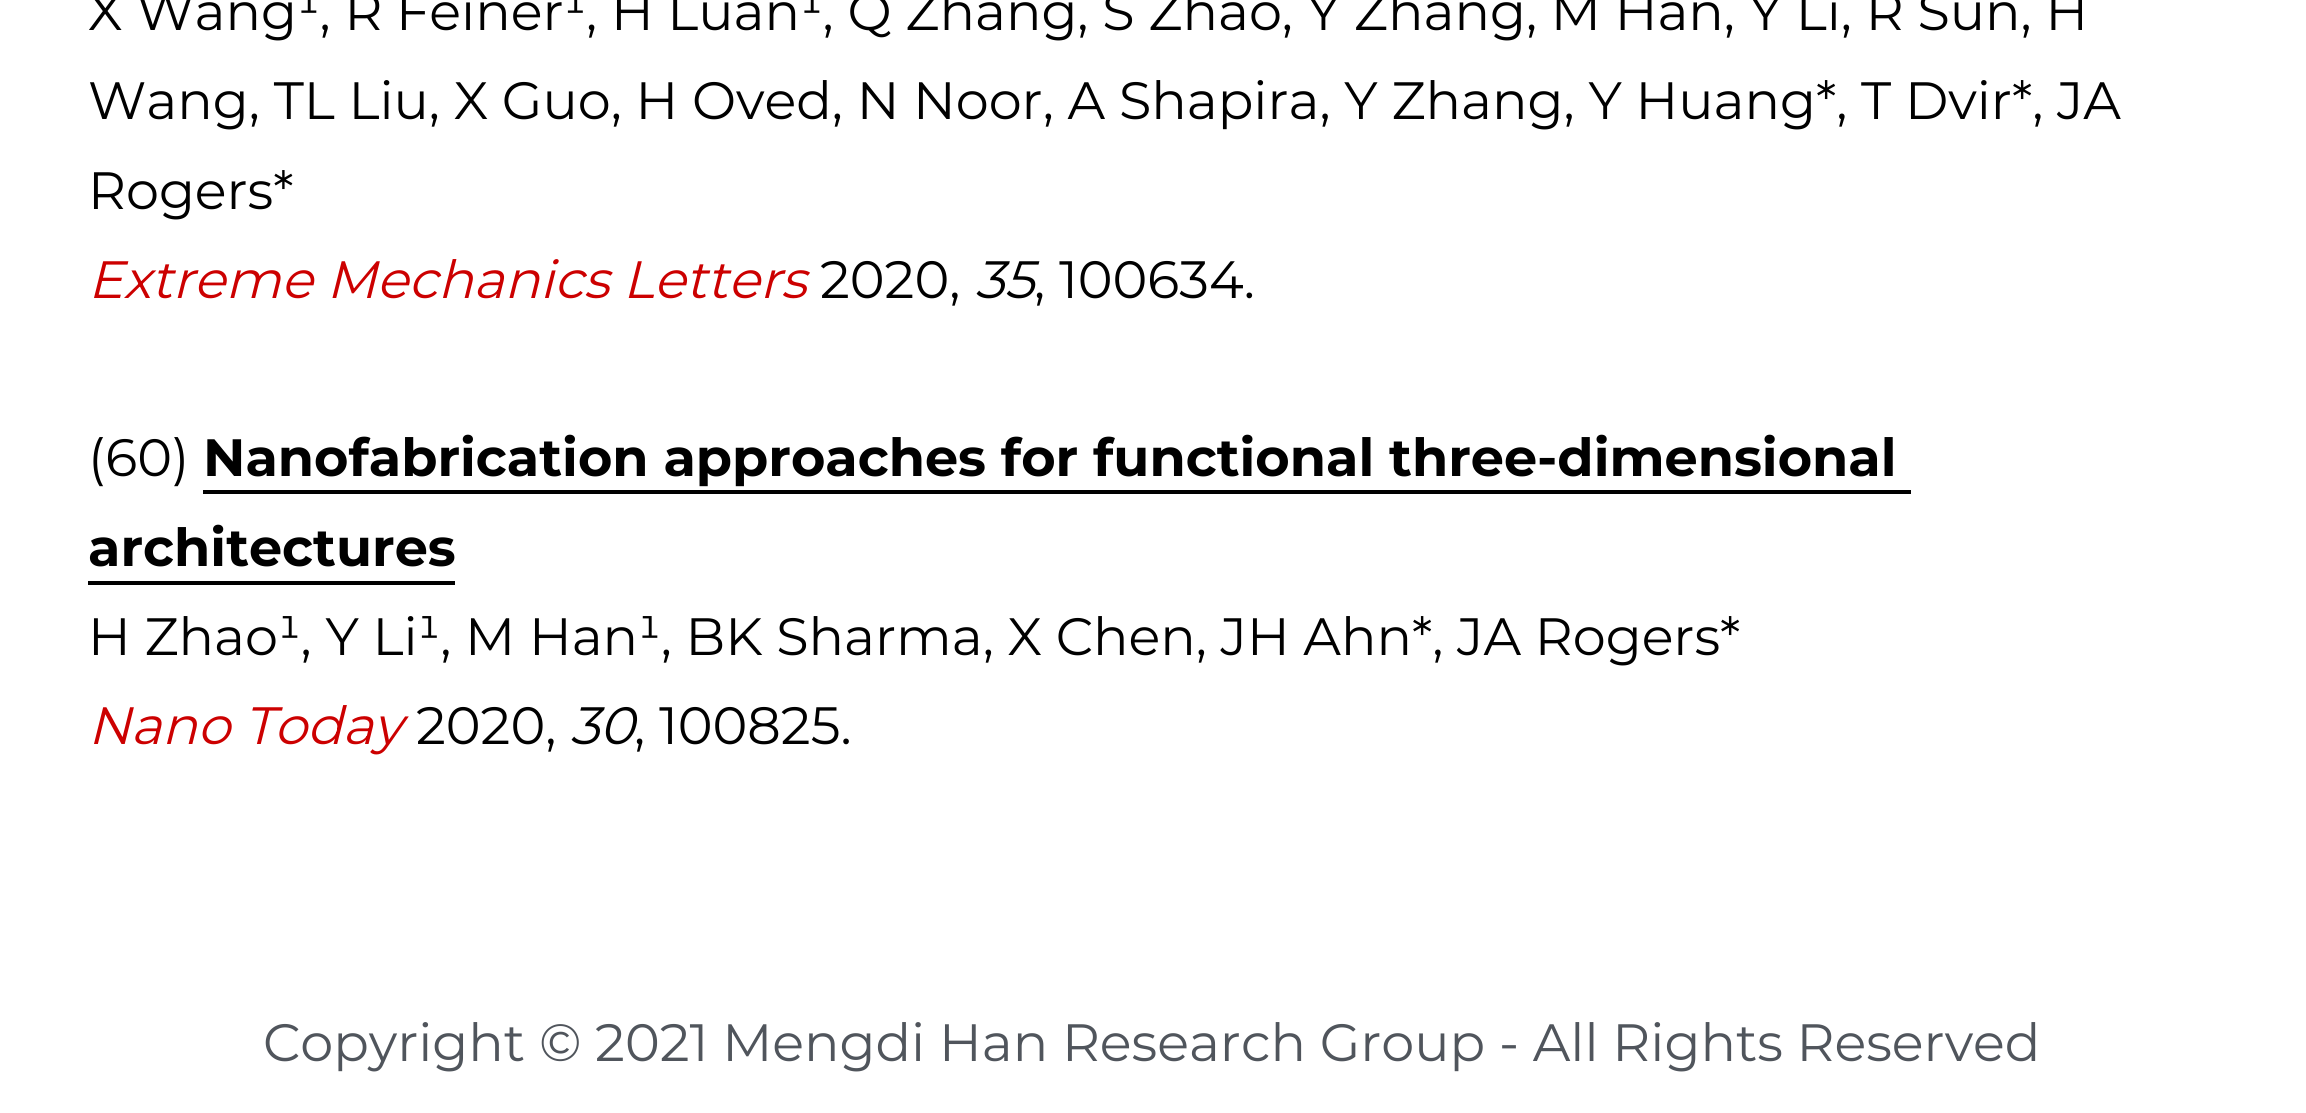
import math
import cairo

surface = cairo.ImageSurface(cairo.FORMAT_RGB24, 2306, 1113)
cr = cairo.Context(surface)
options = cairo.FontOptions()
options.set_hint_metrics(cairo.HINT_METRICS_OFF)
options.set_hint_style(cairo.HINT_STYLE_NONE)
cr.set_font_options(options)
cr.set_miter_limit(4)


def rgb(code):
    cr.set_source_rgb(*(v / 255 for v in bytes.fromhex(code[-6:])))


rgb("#ffffff")
cr.paint()
rgb("#000000")
cr.rectangle(203, 490, 1708, 4)
cr.fill()
cr.rectangle(88, 581, 367, 4)
cr.fill()
cr.select_font_face("Montserrat")
cr.set_font_size(52.5)
for x, y, s in [
    (88, 30, "X Wang¹, R Feiner¹, H Luan¹, Q Zhang, S Zhao, Y Zhang, M Han, Y Li, R Sun, H"),
    (88, 119, "Wang, TL Liu, X Guo, H Oved, N Noor, A Shapira, Y Zhang, Y Huang*, T Dvir*, JA"),
    (88, 209, "Rogers*"),
]:
    cr.move_to(x, y)
    cr.show_text(s)
cr.select_font_face("Montserrat", cairo.FONT_SLANT_ITALIC)
rgb("#cc0000")
cr.move_to(88, 298)
cr.show_text("Extreme Mechanics Letters")
cr.select_font_face("Montserrat")
rgb("#000000")
cr.move_to(820, 298)
cr.show_text("2020,")
cr.select_font_face("Montserrat", cairo.FONT_SLANT_ITALIC)
cr.move_to(975, 298)
cr.show_text("35")
cr.select_font_face("Montserrat")
cr.move_to(1034, 298)
cr.show_text(", 100634.")
cr.move_to(88, 476)
cr.show_text("(60)")
cr.select_font_face("Montserrat", cairo.FONT_SLANT_NORMAL, cairo.FONT_WEIGHT_BOLD)
cr.move_to(203, 476)
cr.show_text("Nanofabrication approaches for functional three-dimensional")
cr.move_to(88, 566)
cr.show_text("architectures")
cr.select_font_face("Montserrat")
cr.move_to(88, 655)
cr.show_text("H Zhao¹, Y Li¹, M Han¹, BK Sharma, X Chen, JH Ahn*, JA Rogers*")
cr.select_font_face("Montserrat", cairo.FONT_SLANT_ITALIC)
rgb("#cc0000")
cr.move_to(88, 744)
cr.show_text("Nano Today")
cr.select_font_face("Montserrat")
rgb("#000000")
cr.move_to(416, 744)
cr.show_text("2020,")
cr.select_font_face("Montserrat", cairo.FONT_SLANT_ITALIC)
cr.move_to(570, 744)
cr.show_text("30")
cr.select_font_face("Montserrat")
cr.move_to(634, 744)
cr.show_text(", 100825.")
rgb("#50555c")
cr.move_to(263, 1061)
cr.show_text("Copyright © 2021 Mengdi Han Research Group - All Rights Reserved")
surface.write_to_png("page.png")
